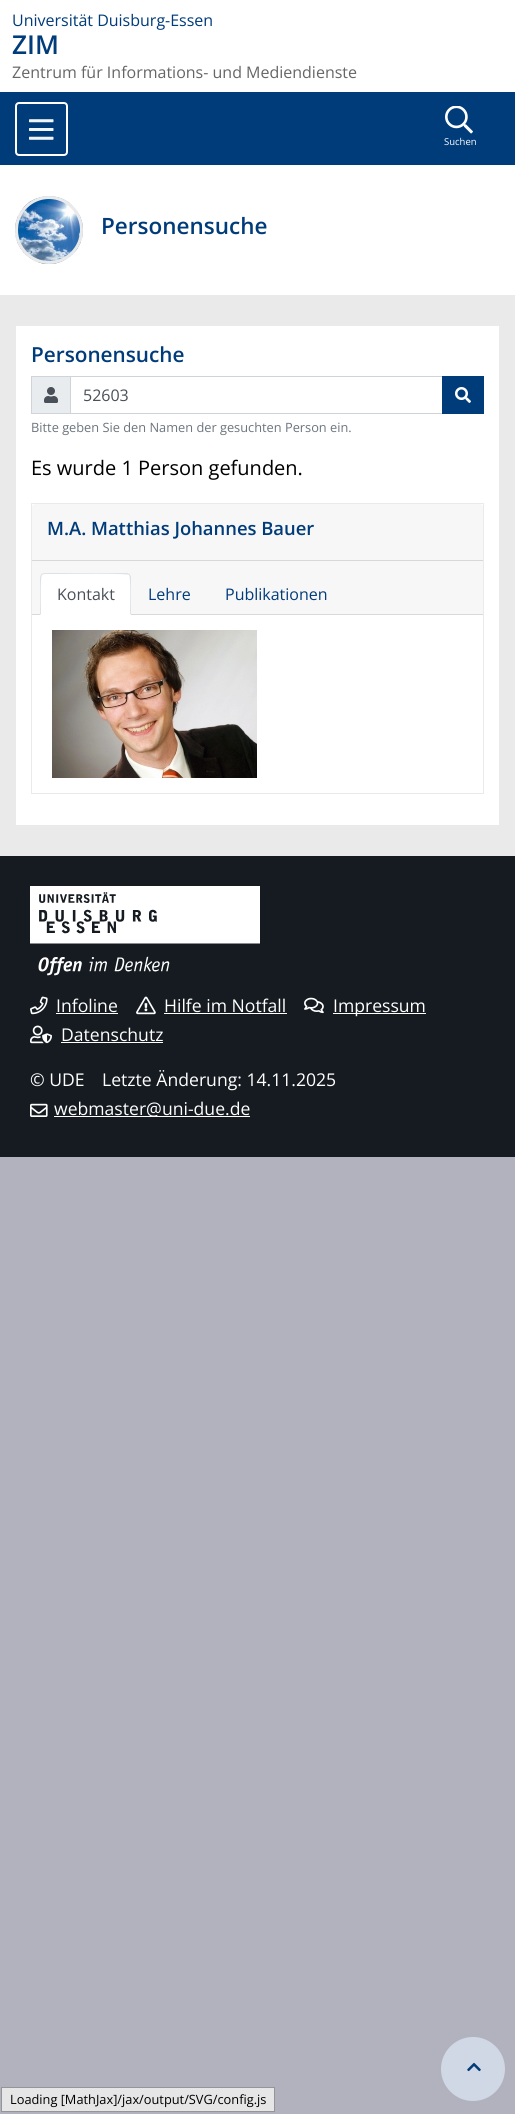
import math
import cairo

surface = cairo.ImageSurface(cairo.FORMAT_RGB24, 515, 2114)
cr = cairo.Context(surface)
options = cairo.FontOptions()
options.set_hint_metrics(cairo.HINT_METRICS_OFF)
options.set_hint_style(cairo.HINT_STYLE_NONE)
cr.set_font_options(options)
cr.set_miter_limit(4)


def rgb(code):
    cr.set_source_rgb(*(v / 255 for v in bytes.fromhex(code[-6:])))


def rrect(x, y, w, h, r):
    cr.new_sub_path()
    for i, (u, v) in enumerate([(x + w - r, y + h - r), (x + r, y + h - r), (x + r, y + r), (x + w - r, y + r)]):
        cr.arc(u, v, r, i * math.pi / 2, (i + 1) * math.pi / 2)
    cr.close_path()


def image(path, x, y, w, h):
    cr.save()
    cr.set_source_surface(cairo.ImageSurface.create_from_png(path), x, y)
    cr.rectangle(x, y, w, h)
    cr.fill()
    cr.restore()


rgb("#b2b2be")
cr.paint()
rgb("#ffffff")
cr.rectangle(0, 0, 515, 295)
cr.fill()
rgb("#003b7a")
cr.rectangle(0, 92, 515, 73)
cr.fill()
rrect(16, 103, 51, 52, 3)
rgb("#ffffff")
cr.stroke()
image("img/1.png", 29, 119, 25, 21)
image("img/2.png", 445, 106, 28, 28)
image("img/3.png", 15, 196, 68, 68)
cr.arc(49, 230, 32.5, 0, 2 * math.pi)
rgb("#eaeaea")
cr.set_line_width(3)
cr.stroke()
cr.rectangle(0, 295, 515, 561)
cr.fill()
rgb("#ffffff")
cr.rectangle(16, 326, 483, 499)
cr.fill()
rgb("#e9ecef")
cr.rectangle(31.5, 376.5, 39, 37)
cr.fill_preserve()
rgb("#ced4da")
cr.set_line_width(1)
cr.stroke()
image("img/4.png", 44, 387, 14, 16)
cr.rectangle(70.5, 376.5, 372, 37)
cr.stroke()
rgb("#003b7a")
cr.rectangle(442, 376, 42, 38)
cr.fill()
image("img/5.png", 455, 387, 16, 16)
cr.rectangle(31.5, 503.5, 452, 290)
rgb("#eaeaea")
cr.stroke()
rgb("#f7f7f7")
cr.new_path()
cr.move_to(35, 504)
cr.line_to(480, 504)
cr.curve_to(481.5, 504, 483, 505.5, 483, 507)
cr.line_to(483, 561)
cr.line_to(32, 561)
cr.line_to(32, 507)
cr.curve_to(32, 505.5, 33.5, 504, 35, 504)
cr.close_path()
cr.fill()
for x, y, w, h, color in [
    (32, 560, 451, 1, "#d8d8d8"),
    (32, 561, 451, 53, "#f7f7f7"),
    (32, 614, 451, 1, "#d8d8d8"),
]:
    rgb(color)
    cr.rectangle(x, y, w, h)
    cr.fill()
rgb("#ffffff")
cr.new_path()
cr.move_to(44, 573)
cr.line_to(127, 573)
cr.curve_to(129, 573, 131, 575, 131, 577)
cr.line_to(131, 615)
cr.line_to(40, 615)
cr.line_to(40, 577)
cr.curve_to(40, 575, 42, 573, 44, 573)
cr.close_path()
cr.fill()
rgb("#dee2e6")
cr.new_path()
cr.move_to(44, 573)
cr.line_to(41, 574)
cr.line_to(42, 575)
cr.line_to(44, 574)
cr.line_to(58, 574)
cr.curve_to(65, 574, 127, 573, 129, 575)
cr.line_to(130, 574)
cr.line_to(127, 573)
cr.close_path()
cr.fill()
cr.new_path()
cr.move_to(131, 615)
cr.line_to(131, 577)
cr.curve_to(131, 576, 130, 575, 130, 574)
cr.line_to(129, 575)
cr.curve_to(131, 577, 130, 609, 130, 614)
cr.close_path()
cr.fill()
rgb("#ffffff")
cr.new_path()
cr.move_to(131, 615)
cr.line_to(130, 614)
cr.line_to(41, 614)
cr.line_to(40, 615)
cr.close_path()
cr.fill()
rgb("#dee2e6")
cr.new_path()
cr.move_to(40, 615)
cr.line_to(41, 614)
cr.curve_to(41, 609, 40, 577, 42, 575)
cr.line_to(41, 574)
cr.line_to(40, 577)
cr.close_path()
cr.fill()
image("img/6.png", 52, 630, 205, 148)
rgb("#d0d7e5")
cr.arc(473, 2069, 32, 0, 2 * math.pi)
cr.fill()
image("img/7.png", 467, 2062, 14, 10)
rgb("#151b20")
cr.rectangle(0, 856, 515, 301)
cr.fill()
image("img/8.png", 30, 886, 230, 90)
image("img/9.png", 30, 996, 18, 19)
rgb("#ffffff")
cr.rectangle(56, 1013, 62, 1)
cr.fill()
image("img/10.png", 136, 996, 20, 19)
cr.rectangle(164, 1013, 123, 1)
cr.fill()
image("img/11.png", 304, 997, 20, 17)
cr.rectangle(333, 1013, 93, 1)
cr.fill()
image("img/12.png", 30, 1025, 22, 19)
cr.rectangle(61, 1042, 102, 1)
cr.fill()
image("img/13.png", 30, 1103, 18, 14)
cr.rectangle(54, 1116, 196, 1)
cr.fill()
rgb("#e6e6e6")
cr.rectangle(1.5, 2087.5, 273, 24)
cr.fill_preserve()
rgb("#959595")
cr.stroke()
cr.select_font_face("Open Sans")
cr.set_font_size(16)
rgb("#003b7a")
cr.move_to(12, 26)
cr.show_text("Universität Duisburg-Essen")
cr.select_font_face("Open Sans SemiBold")
cr.set_font_size(26)
cr.move_to(12, 54)
cr.show_text("ZIM")
cr.select_font_face("Open Sans")
cr.set_font_size(16)
rgb("#666666")
cr.move_to(12, 78)
cr.show_text("Zentrum für Informations- und Mediendienste")
cr.set_font_size(9.5)
rgb("#ffffff")
cr.move_to(444, 145)
cr.show_text("Suchen")
cr.select_font_face("Open Sans SemiBold")
cr.set_font_size(22.5)
rgb("#003b7a")
cr.move_to(101, 234)
cr.show_text("Personensuche")
cr.set_font_size(20.75)
cr.move_to(31, 362)
cr.show_text("Personensuche")
cr.select_font_face("Open Sans")
cr.set_font_size(16)
rgb("#495057")
cr.move_to(83, 401)
cr.show_text("52603")
cr.set_font_size(12.8)
rgb("#6c757d")
cr.move_to(31, 432)
cr.show_text("Bitte geben Sie den Namen der gesuchten Person ein.")
cr.set_font_size(20)
rgb("#000000")
cr.move_to(31, 475)
cr.show_text("Es wurde 1 Person gefunden.")
cr.select_font_face("Open Sans SemiBold")
cr.set_font_size(18.4)
rgb("#003b7a")
cr.move_to(47, 535)
cr.show_text("M.A. Matthias Johannes Bauer")
cr.select_font_face("Open Sans")
cr.set_font_size(16)
rgb("#495057")
cr.move_to(57, 600)
cr.show_text("Kontakt")
rgb("#003b7a")
cr.move_to(148, 600)
cr.show_text("Lehre")
cr.move_to(225, 600)
cr.show_text("Publikationen")
cr.set_font_size(17.6)
rgb("#ffffff")
for x, y, s in [
    (56, 1012, "Infoline"),
    (164, 1012, "Hilfe im Notfall"),
    (333, 1012, "Impressum"),
    (61, 1041, "Datenschutz"),
    (30, 1086, "© UDE"),
    (102, 1086, "Letzte Änderung: 14.11.2025"),
    (54, 1115, "webmaster@uni-due.de"),
]:
    cr.move_to(x, y)
    cr.show_text(s)
cr.set_font_size(12.8)
rgb("#000000")
cr.move_to(10, 2104)
cr.show_text("Loading [MathJax]/jax/output/SVG/config.js")
surface.write_to_png("page.png")
